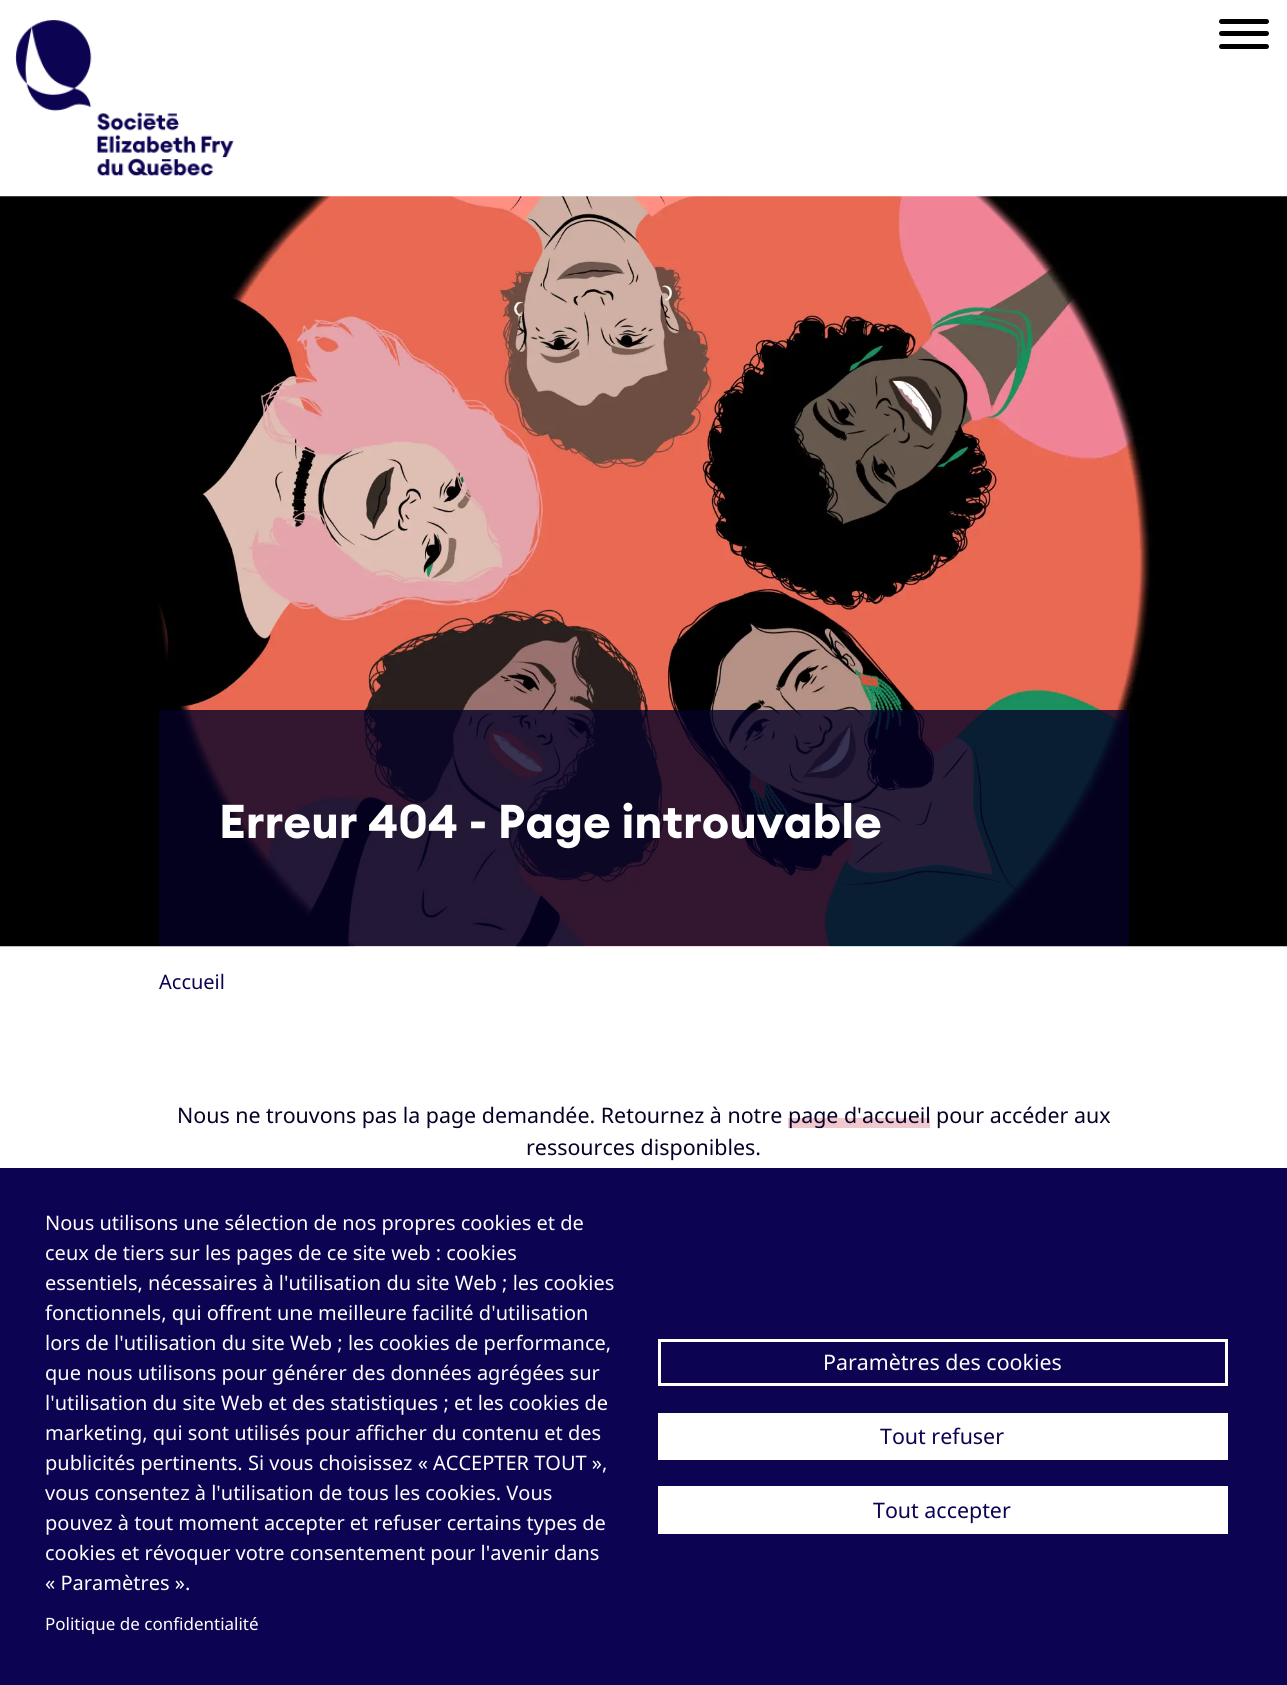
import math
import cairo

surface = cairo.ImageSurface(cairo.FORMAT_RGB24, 1287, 1685)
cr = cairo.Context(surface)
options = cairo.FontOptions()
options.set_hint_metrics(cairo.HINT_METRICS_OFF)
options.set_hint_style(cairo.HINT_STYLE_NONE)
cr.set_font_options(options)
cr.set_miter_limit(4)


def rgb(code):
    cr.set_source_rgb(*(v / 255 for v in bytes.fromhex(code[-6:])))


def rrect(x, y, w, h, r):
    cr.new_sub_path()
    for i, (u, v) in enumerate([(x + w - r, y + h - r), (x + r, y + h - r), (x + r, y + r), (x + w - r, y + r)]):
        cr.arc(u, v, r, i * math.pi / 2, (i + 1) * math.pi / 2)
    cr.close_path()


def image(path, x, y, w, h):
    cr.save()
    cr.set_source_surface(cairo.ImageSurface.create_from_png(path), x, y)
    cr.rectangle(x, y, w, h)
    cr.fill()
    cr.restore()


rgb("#ffffff")
cr.paint()
image("img/1.png", 15, 20, 219, 157)
rgb("#000000")
rrect(1219, 44, 50, 5, 2.5)
cr.fill()
rrect(1219, 19, 50, 5, 2.5)
cr.fill()
rrect(1219, 31, 50, 5, 2.5)
cr.fill()
image("img/2.png", 0, 196, 1287, 751)
cr.set_source_rgba(0.02, 0.008, 0.153, 0.8)
cr.rectangle(159, 710, 970, 236)
cr.fill()
rgb("#f0c8cd")
cr.rectangle(788, 1118, 142, 10)
cr.fill()
rgb("#0c0452")
cr.rectangle(0, 1168, 1287, 517)
cr.fill()
cr.rectangle(659.5, 1340.5, 567, 44)
rgb("#ffffff")
cr.set_line_width(3)
cr.stroke()
cr.rectangle(658, 1413, 570, 47)
cr.fill()
cr.rectangle(658, 1486, 570, 48)
cr.fill()
cr.select_font_face("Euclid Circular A", cairo.FONT_SLANT_NORMAL, cairo.FONT_WEIGHT_BOLD)
cr.set_font_size(46.75)
cr.move_to(219, 838)
cr.show_text("Erreur 404 - Page introuvable")
cr.select_font_face("Noto Sans")
cr.set_font_size(20)
rgb("#0c0452")
cr.move_to(159, 989)
cr.show_text("Accueil")
cr.set_font_size(21.4)
rgb("#050227")
for x, y, s in [
    (177, 1123, "Nous ne trouvons pas la page demandée. Retournez à notre"),
    (788, 1123, "page d'accueil"),
    (936, 1123, "pour accéder aux"),
    (526, 1155, "ressources disponibles."),
]:
    cr.move_to(x, y)
    cr.show_text(s)
cr.set_font_size(20)
rgb("#ffffff")
for x, y, s in [
    (45, 1230, "Nous utilisons une sélection de nos propres cookies et de"),
    (45, 1260, "ceux de tiers sur les pages de ce site web : cookies"),
    (45, 1290, "essentiels, nécessaires à l'utilisation du site Web ; les cookies"),
    (45, 1320, "fonctionnels, qui offrent une meilleure facilité d'utilisation"),
    (45, 1350, "lors de l'utilisation du site Web ; les cookies de performance,"),
    (45, 1380, "que nous utilisons pour générer des données agrégées sur"),
    (45, 1410, "l'utilisation du site Web et des statistiques ; et les cookies de"),
    (45, 1440, "marketing, qui sont utilisés pour afficher du contenu et des"),
    (45, 1470, "publicités pertinents. Si vous choisissez « ACCEPTER TOUT »,"),
    (45, 1500, "vous consentez à l'utilisation de tous les cookies. Vous"),
    (45, 1530, "pouvez à tout moment accepter et refuser certains types de"),
    (45, 1560, "cookies et révoquer votre consentement pour l'avenir dans"),
    (45, 1590, "« Paramètres »."),
]:
    cr.move_to(x, y)
    cr.show_text(s)
cr.set_font_size(17)
cr.move_to(45, 1630)
cr.show_text("Politique de confidentialité")
cr.set_font_size(21.4)
cr.move_to(823, 1370)
cr.show_text("Paramètres des cookies")
rgb("#0c0452")
cr.move_to(880, 1444)
cr.show_text("Tout refuser")
cr.move_to(873, 1518)
cr.show_text("Tout accepter")
surface.write_to_png("page.png")
